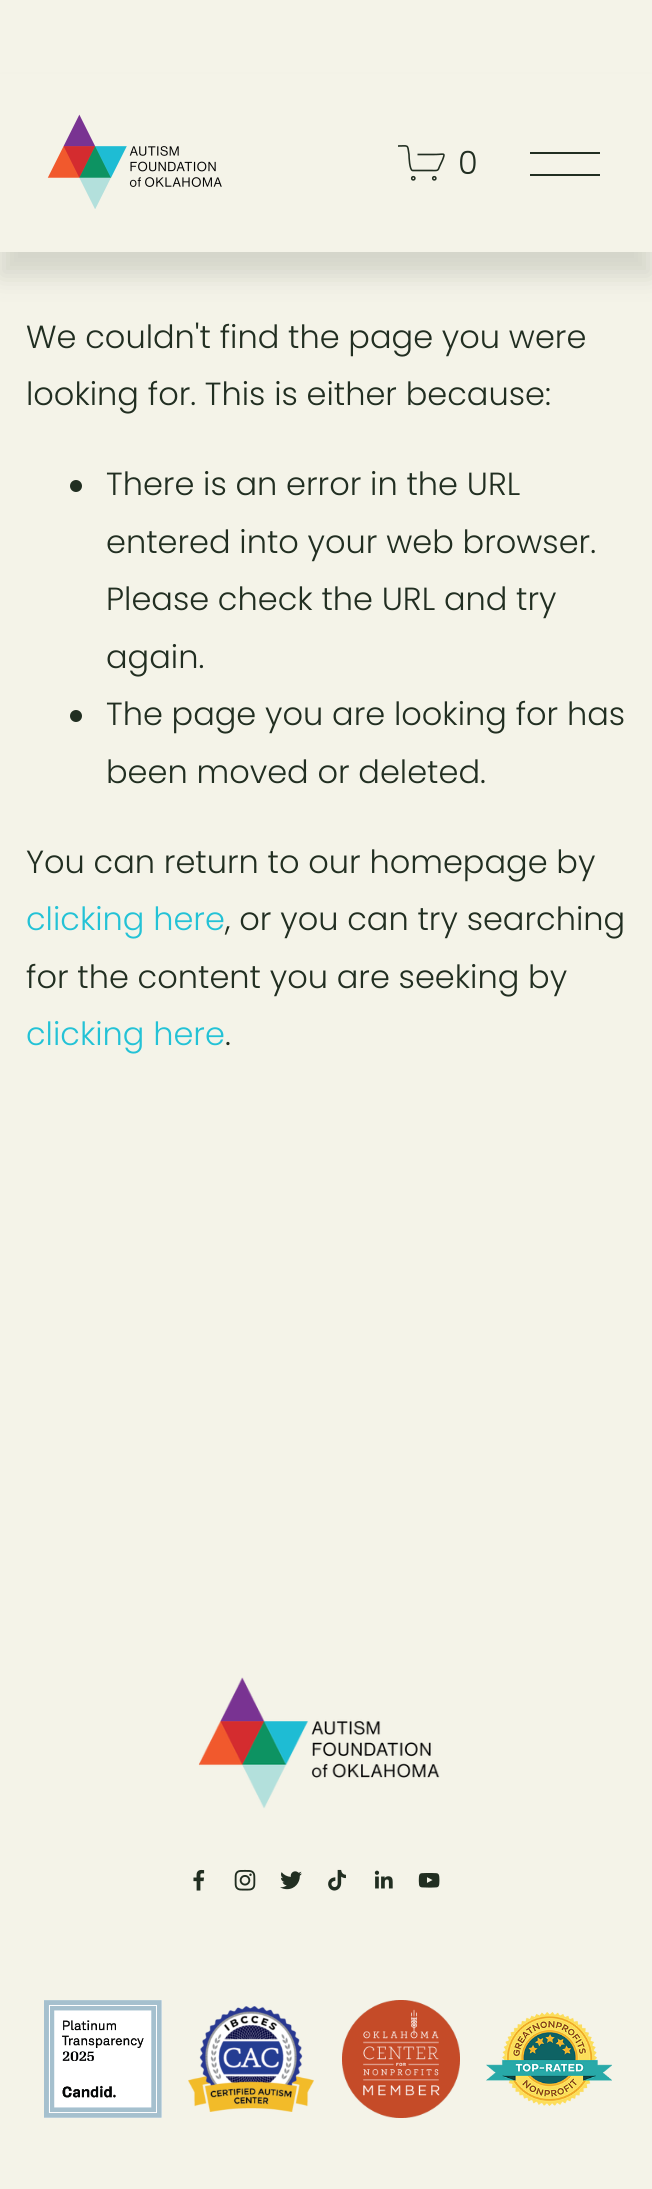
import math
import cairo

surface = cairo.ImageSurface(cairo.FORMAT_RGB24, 652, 2189)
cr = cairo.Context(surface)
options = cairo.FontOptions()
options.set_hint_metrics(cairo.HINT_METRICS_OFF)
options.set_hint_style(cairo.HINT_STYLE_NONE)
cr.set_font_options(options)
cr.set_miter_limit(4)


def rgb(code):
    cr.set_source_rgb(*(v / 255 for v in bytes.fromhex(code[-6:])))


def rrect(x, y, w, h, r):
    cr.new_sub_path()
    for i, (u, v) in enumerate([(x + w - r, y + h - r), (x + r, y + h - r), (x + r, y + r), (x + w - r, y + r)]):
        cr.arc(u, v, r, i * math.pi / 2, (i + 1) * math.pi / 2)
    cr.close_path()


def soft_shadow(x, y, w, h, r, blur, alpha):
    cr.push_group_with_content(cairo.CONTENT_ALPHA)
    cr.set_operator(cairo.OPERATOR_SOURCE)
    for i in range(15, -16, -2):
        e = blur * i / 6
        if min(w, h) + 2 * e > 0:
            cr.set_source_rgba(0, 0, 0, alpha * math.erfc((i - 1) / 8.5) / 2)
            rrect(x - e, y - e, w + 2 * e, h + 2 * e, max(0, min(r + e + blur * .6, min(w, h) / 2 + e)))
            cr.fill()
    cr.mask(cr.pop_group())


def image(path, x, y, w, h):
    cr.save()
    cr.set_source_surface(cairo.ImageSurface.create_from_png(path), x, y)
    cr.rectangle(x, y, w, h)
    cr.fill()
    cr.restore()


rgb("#f4f3e8")
cr.paint()
cr.save()
cr.set_fill_rule(cairo.FILL_RULE_EVEN_ODD)
cr.new_path()
cr.move_to(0, 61)
cr.line_to(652, 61)
cr.line_to(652, 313)
cr.line_to(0, 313)
cr.close_path()
cr.move_to(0, 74)
cr.line_to(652, 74)
cr.line_to(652, 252)
cr.line_to(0, 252)
cr.close_path()
cr.clip()
rgb("#d4d5ca")
soft_shadow(0, 98, 652, 178, 0, 12, 1)
cr.restore()
image("img/1.png", 47, 114, 175, 95)
cr.arc(434.3, 178.3, 1.6, 0, 2 * math.pi)
rgb("#212e21")
cr.set_line_width(1.6)
cr.stroke()
cr.arc(413.3, 178.3, 1.6, 0, 2 * math.pi)
cr.stroke()
cr.new_path()
cr.move_to(398, 146)
cr.curve_to(408.5, 146, 407.5, 144, 409, 154.5)
cr.curve_to(409, 157, 409.5, 170, 412.5, 170.5)
cr.line_to(432.5, 170.5)
cr.curve_to(437.5, 170.5, 438, 171, 439.5, 166.5)
cr.line_to(442.5, 160)
cr.curve_to(445.5, 152, 444.5, 154.5, 434.5, 154.5)
cr.line_to(417.5, 154.5)
cr.stroke()
cr.rectangle(530, 152, 70, 2)
cr.fill()
cr.rectangle(530, 174, 70, 2)
cr.fill()
cr.arc(76, 486, 6, 0, 2 * math.pi)
cr.fill()
cr.arc(76, 716, 6, 0, 2 * math.pi)
cr.fill()
image("img/2.png", 198, 1677, 242, 132)
image("img/3.png", 193, 1869, 12, 22)
image("img/4.png", 234, 1869, 22, 22)
image("img/5.png", 280, 1871, 22, 19)
image("img/6.png", 328, 1869, 18, 22)
image("img/7.png", 374, 1870, 19, 19)
image("img/8.png", 418, 1873, 22, 15)
image("img/9.png", 44, 2000, 118, 118)
image("img/10.png", 188, 2006, 126, 106)
image("img/11.png", 342, 2000, 118, 118)
image("img/12.png", 486, 2012, 126, 94)
cr.select_font_face("Poppins Light")
cr.set_font_size(32)
for x, y, s in [
    (458, 174, "0"),
    (26, 348, "We couldn't find the page you were"),
    (26, 405, "looking for. This is either because:"),
    (106, 495, "There is an error in the URL"),
    (106, 553, "entered into your web browser."),
    (106, 610, "Please check the URL and try"),
    (106, 668, "again."),
    (106, 725, "The page you are looking for has"),
    (106, 783, "been moved or deleted."),
    (26, 873, "You can return to our homepage by"),
]:
    cr.move_to(x, y)
    cr.show_text(s)
rgb("#23c2d6")
cr.move_to(26, 930)
cr.show_text("clicking here")
rgb("#212e21")
cr.move_to(225, 930)
cr.show_text(", or you can try searching")
cr.move_to(26, 988)
cr.show_text("for the content you are seeking by")
rgb("#23c2d6")
cr.move_to(26, 1045)
cr.show_text("clicking here")
rgb("#212e21")
cr.move_to(225, 1045)
cr.show_text(".")
surface.write_to_png("page.png")
